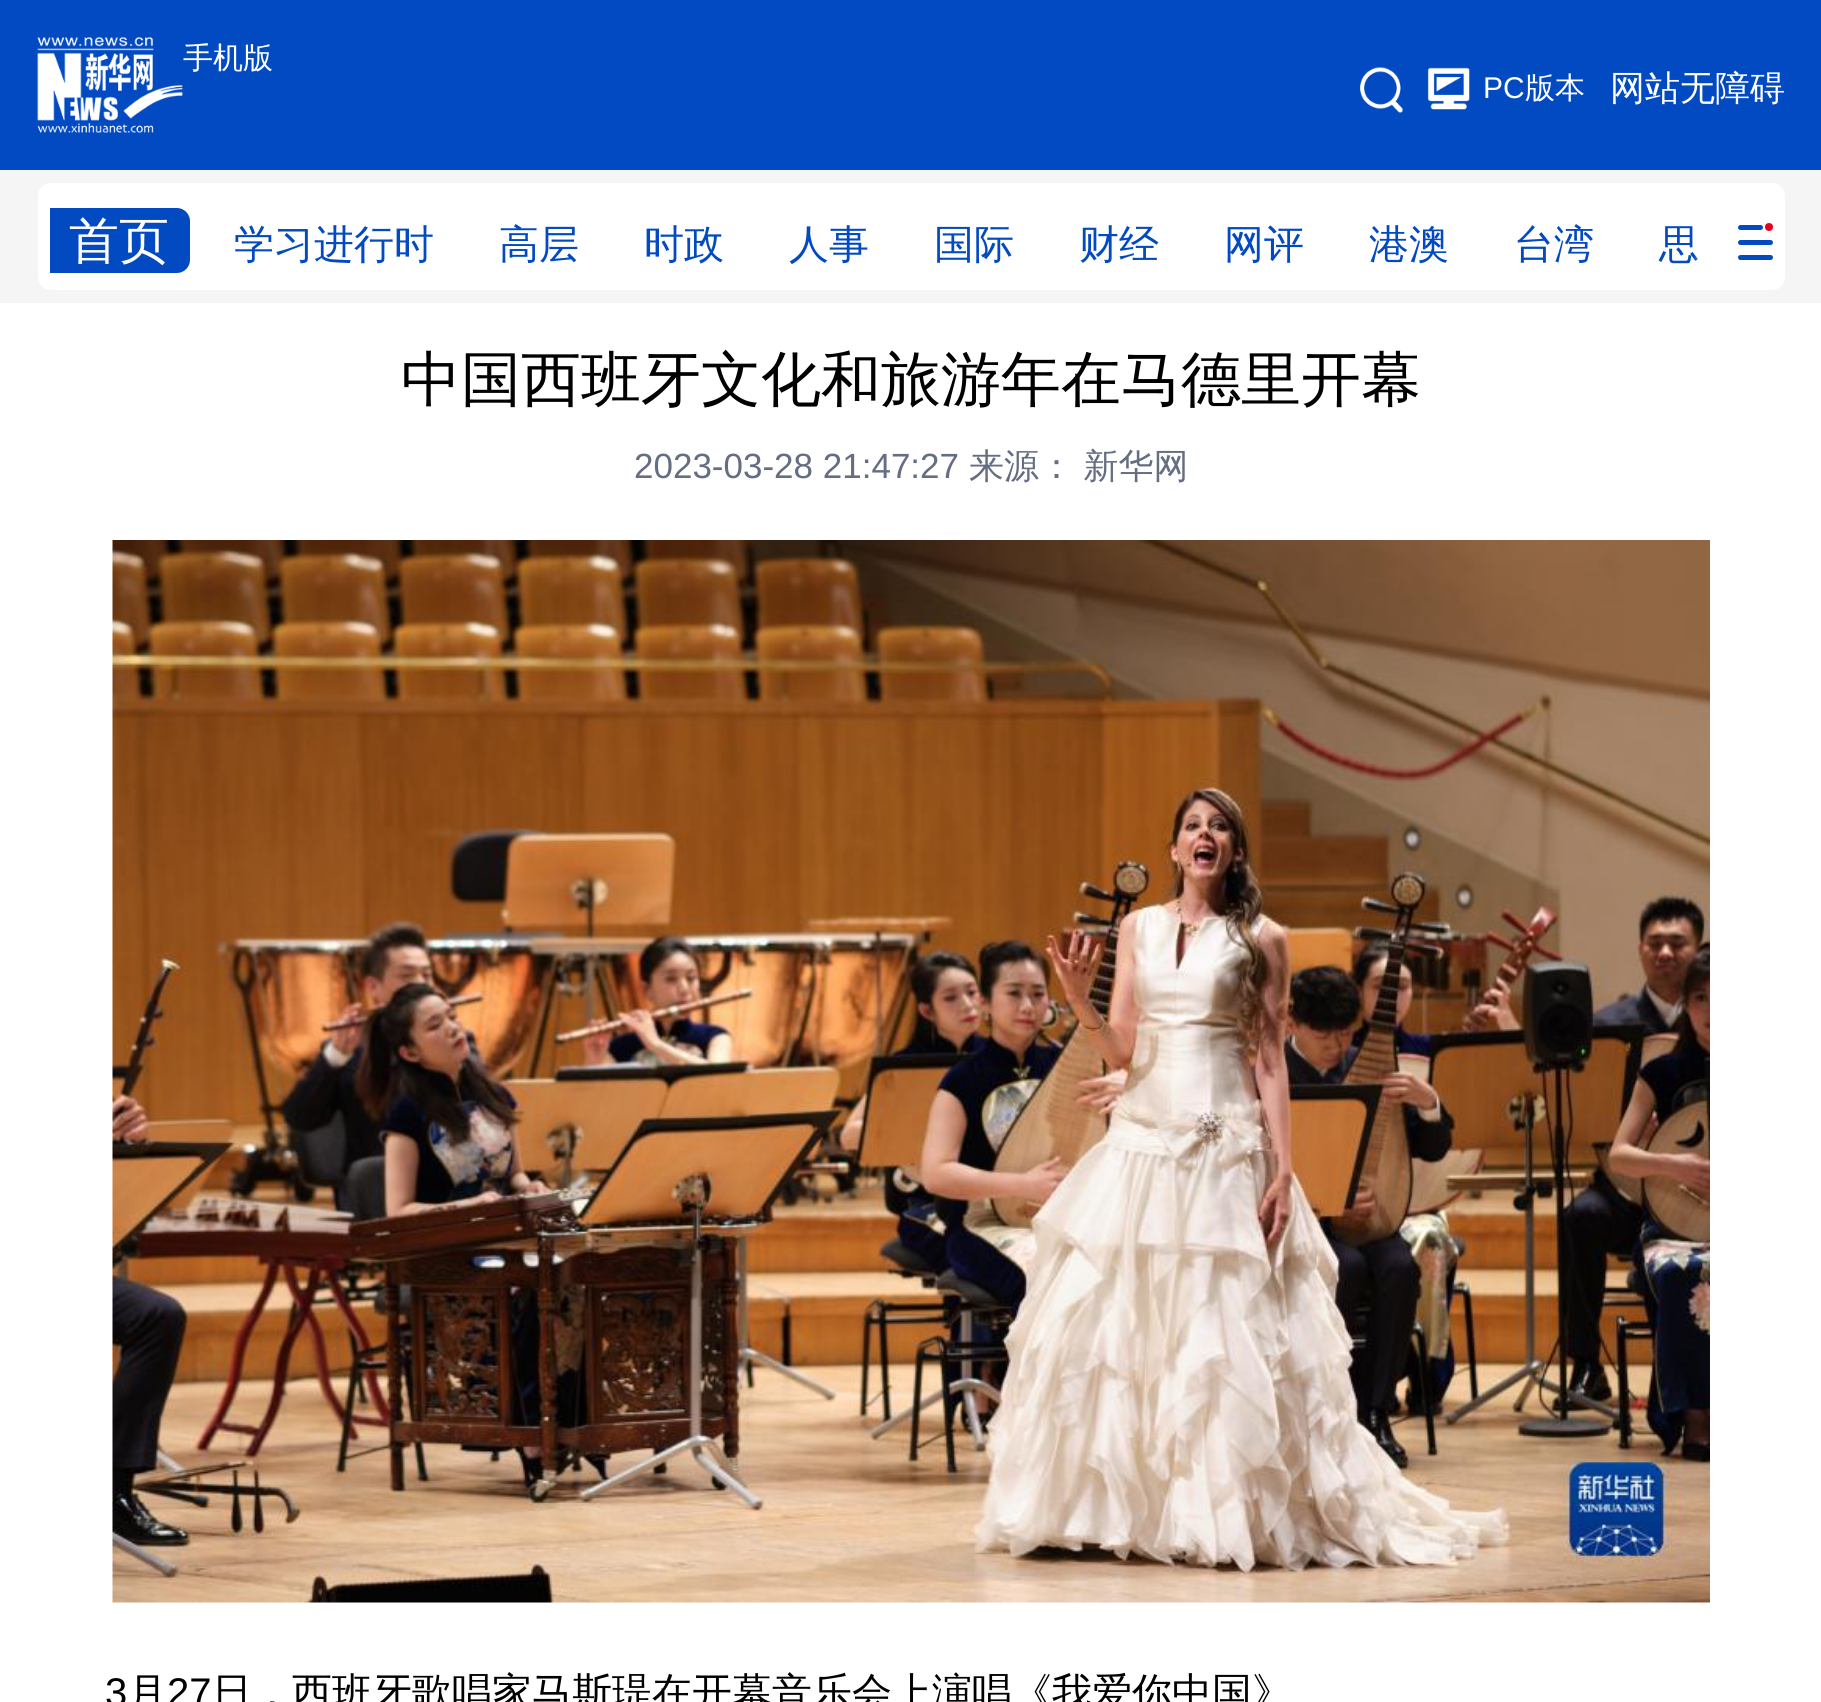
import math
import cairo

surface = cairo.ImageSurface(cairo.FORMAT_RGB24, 1821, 1702)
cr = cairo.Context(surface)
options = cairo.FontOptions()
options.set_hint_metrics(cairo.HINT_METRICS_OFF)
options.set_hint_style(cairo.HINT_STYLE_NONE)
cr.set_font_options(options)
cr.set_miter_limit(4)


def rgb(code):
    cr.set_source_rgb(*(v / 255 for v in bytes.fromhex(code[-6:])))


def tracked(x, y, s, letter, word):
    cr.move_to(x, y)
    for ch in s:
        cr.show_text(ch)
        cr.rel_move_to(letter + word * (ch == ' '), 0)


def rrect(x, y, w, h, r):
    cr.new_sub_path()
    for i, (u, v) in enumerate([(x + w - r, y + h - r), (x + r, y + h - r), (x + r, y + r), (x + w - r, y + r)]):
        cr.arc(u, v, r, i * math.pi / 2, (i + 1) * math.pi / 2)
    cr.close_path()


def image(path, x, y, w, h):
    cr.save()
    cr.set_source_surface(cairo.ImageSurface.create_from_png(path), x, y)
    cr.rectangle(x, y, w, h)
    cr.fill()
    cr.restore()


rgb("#ffffff")
cr.paint()
rgb("#024ac2")
cr.rectangle(0, 0, 1821, 170)
cr.fill()
image("img/1.png", 37, 37, 146, 96)
image("img/2.png", 1360, 67, 43, 46)
image("img/3.png", 1427, 67, 43, 43)
rgb("#f5f5f5")
cr.rectangle(0, 170, 1821, 133)
cr.fill()
rgb("#ffffff")
rrect(38, 183, 1747, 107, 13)
cr.fill()
rgb("#024ac2")
cr.new_path()
cr.move_to(50, 208)
cr.line_to(177, 208)
cr.curve_to(184, 208, 190, 214, 190, 221)
cr.line_to(190, 260)
cr.curve_to(190, 267, 184, 273, 177, 273)
cr.line_to(50, 273)
cr.close_path()
cr.fill()
rrect(1738, 225, 25, 5, 2.5)
cr.fill()
rgb("#e50020")
cr.arc(1769, 227, 4, 0, 2 * math.pi)
cr.fill()
rgb("#024ac2")
rrect(1738, 240, 35, 5, 2.5)
cr.fill()
rrect(1738, 255, 35, 5, 2.5)
cr.fill()
image("img/4.png", 112, 540, 1598, 1063)
cr.select_font_face("WenQuanYi Zen Hei Medium")
cr.set_font_size(30)
rgb("#ffffff")
cr.move_to(183, 68)
cr.show_text("手机版")
cr.select_font_face("Liberation Sans")
cr.move_to(1483, 98)
cr.show_text("PC")
cr.select_font_face("WenQuanYi Zen Hei Medium")
cr.move_to(1525, 98)
cr.show_text("版本")
cr.set_font_size(35)
cr.move_to(1610, 100)
cr.show_text("网站无障碍")
cr.set_font_size(50)
cr.move_to(69, 258)
cr.show_text("首页")
cr.set_font_size(40)
rgb("#024ac2")
for x, y, s in [
    (234, 258, "学习进行时"),
    (499, 258, "高层"),
    (644, 258, "时政"),
    (789, 258, "人事"),
    (934, 258, "国际"),
    (1079, 258, "财经"),
    (1224, 258, "网评"),
    (1369, 258, "港澳"),
    (1514, 258, "台湾"),
    (1659, 258, "思"),
]:
    cr.move_to(x, y)
    cr.show_text(s)
gradient = cairo.LinearGradient(1693, 243, 1718, 243)
gradient.add_color_stop_rgba(0, 1, 1, 1, 0)
gradient.add_color_stop_rgba(1, 1, 1, 1, 1)
cr.set_source(gradient)
cr.rectangle(1694, 254, 4, 7)
cr.fill()
cr.set_font_size(60)
rgb("#000000")
cr.move_to(401, 400)
cr.show_text("中国西班牙文化和旅游年在马德里开幕")
cr.select_font_face("Liberation Sans")
cr.set_font_size(35)
rgb("#646d81")
cr.move_to(634, 478)
cr.show_text("2023-03-28 21:47:27")
cr.select_font_face("WenQuanYi Zen Hei Medium")
tracked(969, 478, "来源： 新华网", 0, -1)
cr.select_font_face("Liberation Sans")
cr.set_font_size(40)
rgb("#000000")
cr.move_to(105, 1706)
cr.show_text("3")
cr.select_font_face("WenQuanYi Zen Hei Medium")
cr.move_to(127, 1706)
cr.show_text("月")
cr.select_font_face("Liberation Sans")
cr.move_to(167, 1706)
cr.show_text("27")
cr.select_font_face("WenQuanYi Zen Hei Medium")
cr.move_to(212, 1706)
cr.show_text("日，西班牙歌唱家马斯瑅在开幕音乐会上演唱《我爱你中国》")
surface.write_to_png("page.png")
